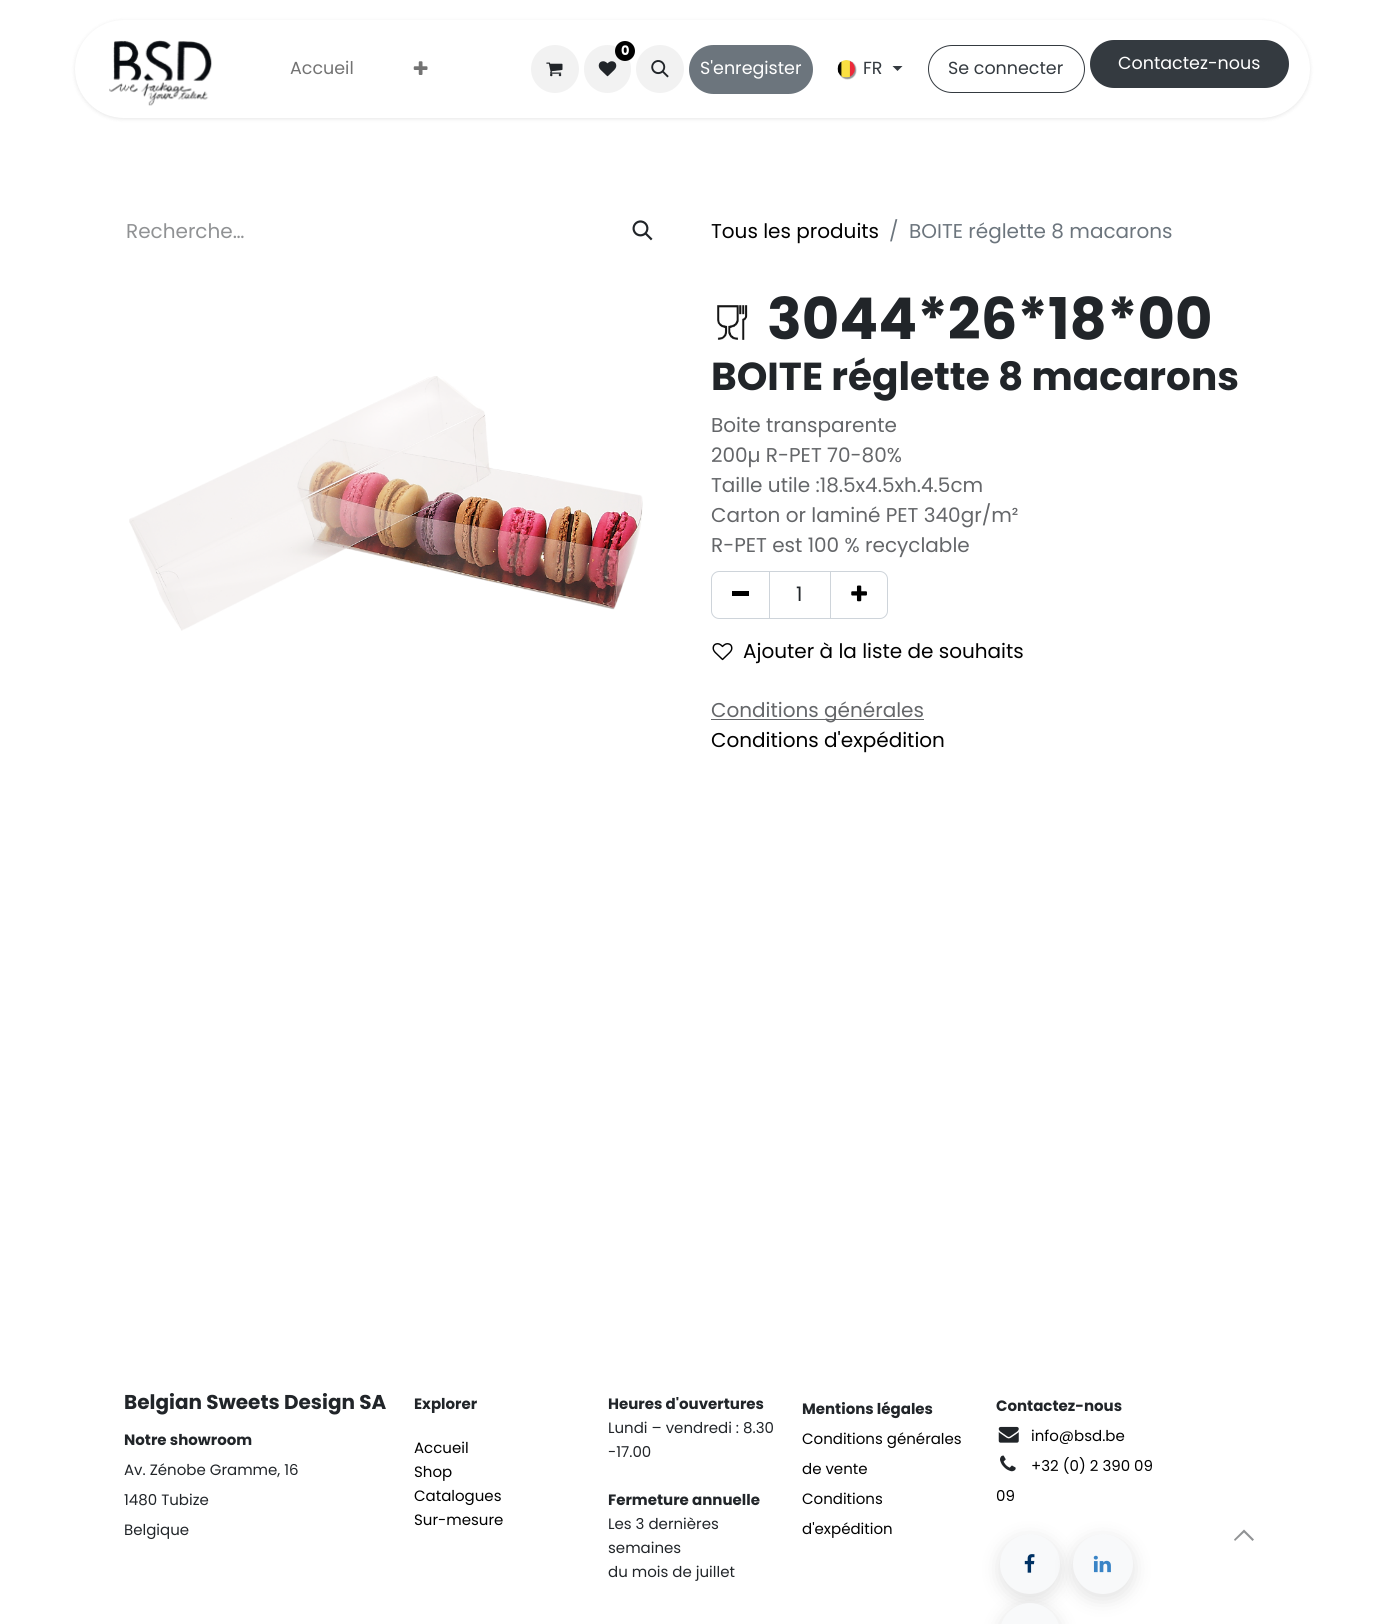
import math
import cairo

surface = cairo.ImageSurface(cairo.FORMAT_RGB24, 1385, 1624)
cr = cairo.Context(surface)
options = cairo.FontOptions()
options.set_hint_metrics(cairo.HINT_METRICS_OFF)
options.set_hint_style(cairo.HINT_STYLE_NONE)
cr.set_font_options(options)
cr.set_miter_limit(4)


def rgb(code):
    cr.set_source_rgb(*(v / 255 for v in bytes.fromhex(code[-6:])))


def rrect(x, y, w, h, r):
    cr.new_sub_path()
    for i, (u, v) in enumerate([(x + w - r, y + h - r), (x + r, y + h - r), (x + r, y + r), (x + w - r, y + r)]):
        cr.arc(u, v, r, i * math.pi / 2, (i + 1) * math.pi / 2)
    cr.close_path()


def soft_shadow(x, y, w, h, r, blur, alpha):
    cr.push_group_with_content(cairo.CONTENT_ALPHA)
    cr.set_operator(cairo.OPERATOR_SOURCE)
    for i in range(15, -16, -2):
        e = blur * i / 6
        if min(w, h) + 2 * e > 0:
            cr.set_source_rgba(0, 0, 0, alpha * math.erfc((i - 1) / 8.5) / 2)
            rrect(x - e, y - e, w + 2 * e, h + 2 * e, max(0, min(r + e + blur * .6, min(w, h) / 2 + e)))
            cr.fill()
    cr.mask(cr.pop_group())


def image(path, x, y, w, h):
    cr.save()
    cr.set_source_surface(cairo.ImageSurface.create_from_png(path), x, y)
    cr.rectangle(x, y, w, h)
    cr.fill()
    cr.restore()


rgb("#ffffff")
cr.paint()
rgb("#000000")
soft_shadow(75, 21, 1235, 98, 49, 2, 0.1)
rgb("#ffffff")
rrect(75, 20, 1235, 98, 49)
cr.fill()
image("img/1.png", 109, 40, 103, 66)
image("img/2.png", 413, 61, 15, 14)
rgb("#f2f2f2")
cr.arc(555, 69, 24, 0, 2 * math.pi)
cr.fill()
image("img/3.png", 546, 62, 17, 15)
rrect(584, 45, 47, 48, 23.5)
cr.fill()
rgb("#000000")
cr.arc(625, 51, 10, 0, 2 * math.pi)
cr.fill()
image("img/4.png", 598, 61, 19, 16)
rgb("#f2f2f2")
cr.arc(660, 69, 24, 0, 2 * math.pi)
cr.fill()
image("img/5.png", 651, 60, 18, 18)
rgb("#6c757d")
rrect(689, 45, 124, 49, 24.5)
cr.fill()
rgb("#000000")
soft_shadow(839, 61, 17, 18, 8.5, 0.5, 0.43)
image("img/6.png", 837, 60, 18, 18)
rgb("#343a40")
cr.new_path()
cr.move_to(892.5, 66)
cr.line_to(902.5, 66)
cr.line_to(897.5, 71)
cr.close_path()
cr.fill()
rrect(928.5, 45.5, 156, 47, 23.5)
cr.set_line_width(1)
cr.stroke()
rrect(1090, 40, 199, 48, 24)
cr.fill()
image("img/7.png", 632, 220, 21, 21)
image("img/8.png", 129, 376, 514, 255)
image("img/9.png", 717, 305, 31, 35)
cr.rectangle(769.5, 571.5, 61, 47)
rgb("#ced4da")
cr.stroke()
cr.new_path()
cr.move_to(719, 571.5)
cr.line_to(769.5, 571.5)
cr.line_to(769.5, 618.5)
cr.line_to(719, 618.5)
cr.curve_to(715, 618.5, 711.5, 615, 711.5, 611)
cr.line_to(711.5, 579)
cr.curve_to(711.5, 575, 715, 571.5, 719, 571.5)
cr.close_path()
cr.stroke()
rgb("#000000")
cr.rectangle(732, 591, 17, 5)
cr.fill()
cr.new_path()
cr.move_to(830.5, 571.5)
cr.line_to(880, 571.5)
cr.curve_to(884, 571.5, 887.5, 575, 887.5, 579)
cr.line_to(887.5, 611)
cr.curve_to(887.5, 615, 884, 618.5, 880, 618.5)
cr.line_to(830.5, 618.5)
cr.close_path()
rgb("#ced4da")
cr.stroke()
image("img/10.png", 851, 585, 16, 17)
image("img/11.png", 712, 643, 21, 18)
rgb("#646669")
cr.rectangle(711, 719, 213, 1)
cr.fill()
image("img/12.png", 998, 1426, 21, 17)
image("img/13.png", 1000, 1455, 16, 17)
rgb("#000000")
soft_shadow(1000, 1539, 60, 60, 30, 10, 0.12)
rgb("#f8f9fa")
cr.arc(1030, 1564, 30, 0, 2 * math.pi)
cr.fill()
image("img/14.png", 1024, 1554, 11, 19)
rgb("#000000")
soft_shadow(1073, 1539, 60, 60, 30, 10, 0.12)
rgb("#f8f9fa")
cr.arc(1103, 1564, 30, 0, 2 * math.pi)
cr.fill()
image("img/15.png", 1093, 1555, 18, 18)
rgb("#000000")
soft_shadow(1000, 1608, 60, 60, 30, 10, 0.12)
rgb("#f8f9fa")
cr.new_path()
cr.move_to(1030, 1603)
cr.curve_to(1046.5, 1603, 1060, 1616.5, 1060, 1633)
cr.line_to(1060, 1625)
cr.line_to(1000, 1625)
cr.line_to(1000, 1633)
cr.curve_to(1000, 1616.5, 1013.5, 1603, 1030, 1603)
cr.close_path()
cr.fill()
rgb("#909294")
cr.new_path()
cr.move_to(1244, 1529.5)
cr.line_to(1254, 1539.5)
cr.line_to(1252.5, 1541)
cr.line_to(1244, 1532.5)
cr.line_to(1235, 1541)
cr.line_to(1234, 1539.5)
cr.close_path()
cr.fill()
cr.select_font_face("Poppins")
cr.set_font_size(17.5)
rgb("#737373")
cr.move_to(290, 74)
cr.show_text("Accueil")
cr.select_font_face("Poppins", cairo.FONT_SLANT_NORMAL, cairo.FONT_WEIGHT_BOLD)
cr.set_font_size(13)
rgb("#ffffff")
cr.move_to(621, 55)
cr.show_text("0")
cr.select_font_face("Poppins")
cr.set_font_size(17.5)
cr.move_to(700, 74)
cr.show_text("S'enregister")
rgb("#343a40")
cr.move_to(863, 74)
cr.show_text("FR")
cr.move_to(948, 74)
cr.show_text("Se connecter")
rgb("#ffffff")
cr.move_to(1118, 69)
cr.show_text("Contactez-nous")
cr.set_font_size(20)
rgb("#909294")
cr.move_to(126, 238)
cr.show_text("Recherche…")
rgb("#000000")
cr.move_to(711, 238)
cr.show_text("Tous les produits")
rgb("#6c757d")
cr.move_to(889, 238)
cr.show_text("/")
cr.move_to(909, 238)
cr.show_text("BOITE réglette 8 macarons")
cr.select_font_face("Poppins", cairo.FONT_SLANT_NORMAL, cairo.FONT_WEIGHT_BOLD)
cr.set_font_size(57.5)
rgb("#212529")
cr.move_to(767, 339)
cr.show_text("3044*26*18*00")
cr.set_font_size(39)
cr.move_to(711, 390)
cr.show_text("BOITE réglette 8 macarons")
cr.select_font_face("Poppins")
cr.set_font_size(20)
rgb("#646669")
for x, y, s in [
    (711, 432, "Boite transparente"),
    (711, 462, "200µ R-PET 70-80%"),
    (711, 492, "Taille utile :18.5x4.5xh.4.5cm"),
    (711, 522, "Carton or laminé PET 340gr/m²"),
    (711, 552, "R-PET est 100 % recyclable"),
]:
    cr.move_to(x, y)
    cr.show_text(s)
rgb("#212529")
cr.move_to(796, 601)
cr.show_text("1")
rgb("#000000")
cr.move_to(743, 658)
cr.show_text("Ajouter à la liste de souhaits")
rgb("#646669")
cr.move_to(711, 717)
cr.show_text("Conditions générales")
rgb("#000000")
cr.move_to(711, 747)
cr.show_text("Conditions d'expédition")
cr.select_font_face("Poppins", cairo.FONT_SLANT_NORMAL, cairo.FONT_WEIGHT_BOLD)
rgb("#212529")
cr.move_to(124, 1409)
cr.show_text("Belgian Sweets Design SA")
cr.set_font_size(15)
cr.move_to(124, 1445)
cr.show_text("Notre showroom")
cr.select_font_face("Poppins")
for x, y, s in [
    (124, 1475, "Av. Zénobe Gramme, 16"),
    (124, 1505, "1480 Tubize"),
    (124, 1535, "Belgique"),
]:
    cr.move_to(x, y)
    cr.show_text(s)
cr.select_font_face("Poppins", cairo.FONT_SLANT_NORMAL, cairo.FONT_WEIGHT_BOLD)
cr.move_to(414, 1409)
cr.show_text("Explorer")
cr.select_font_face("Poppins")
rgb("#000000")
for x, y, s in [
    (414, 1453, "Accueil"),
    (414, 1477, "Shop"),
    (414, 1501, "Catalogues"),
    (414, 1525, "Sur-mesure"),
]:
    cr.move_to(x, y)
    cr.show_text(s)
cr.select_font_face("Poppins", cairo.FONT_SLANT_NORMAL, cairo.FONT_WEIGHT_BOLD)
rgb("#212529")
cr.move_to(608, 1409)
cr.show_text("Heures d'ouvertures")
cr.select_font_face("Poppins")
cr.move_to(608, 1433)
cr.show_text("Lundi – vendredi : 8.30")
cr.move_to(608, 1457)
cr.show_text("-17.00")
cr.select_font_face("Poppins", cairo.FONT_SLANT_NORMAL, cairo.FONT_WEIGHT_BOLD)
cr.move_to(608, 1505)
cr.show_text("Fermeture annuelle")
cr.select_font_face("Poppins")
for x, y, s in [
    (608, 1529, "Les 3 dernières"),
    (608, 1553, "semaines"),
    (608, 1577, "du mois de juillet"),
]:
    cr.move_to(x, y)
    cr.show_text(s)
cr.select_font_face("Poppins", cairo.FONT_SLANT_NORMAL, cairo.FONT_WEIGHT_BOLD)
cr.move_to(802, 1414)
cr.show_text("Mentions légales")
cr.select_font_face("Poppins")
rgb("#000000")
for x, y, s in [
    (802, 1444, "Conditions générales"),
    (802, 1474, "de vente"),
    (802, 1504, "Conditions"),
    (802, 1534, "d'expédition"),
]:
    cr.move_to(x, y)
    cr.show_text(s)
cr.select_font_face("Poppins", cairo.FONT_SLANT_NORMAL, cairo.FONT_WEIGHT_BOLD)
rgb("#212529")
cr.move_to(996, 1411)
cr.show_text("Contactez-nous")
cr.select_font_face("Poppins")
rgb("#000000")
for x, y, s in [
    (1031, 1441, "info@bsd.be"),
    (1031, 1471, "+32 (0) 2 390 09"),
    (996, 1501, "09"),
]:
    cr.move_to(x, y)
    cr.show_text(s)
surface.write_to_png("page.png")
